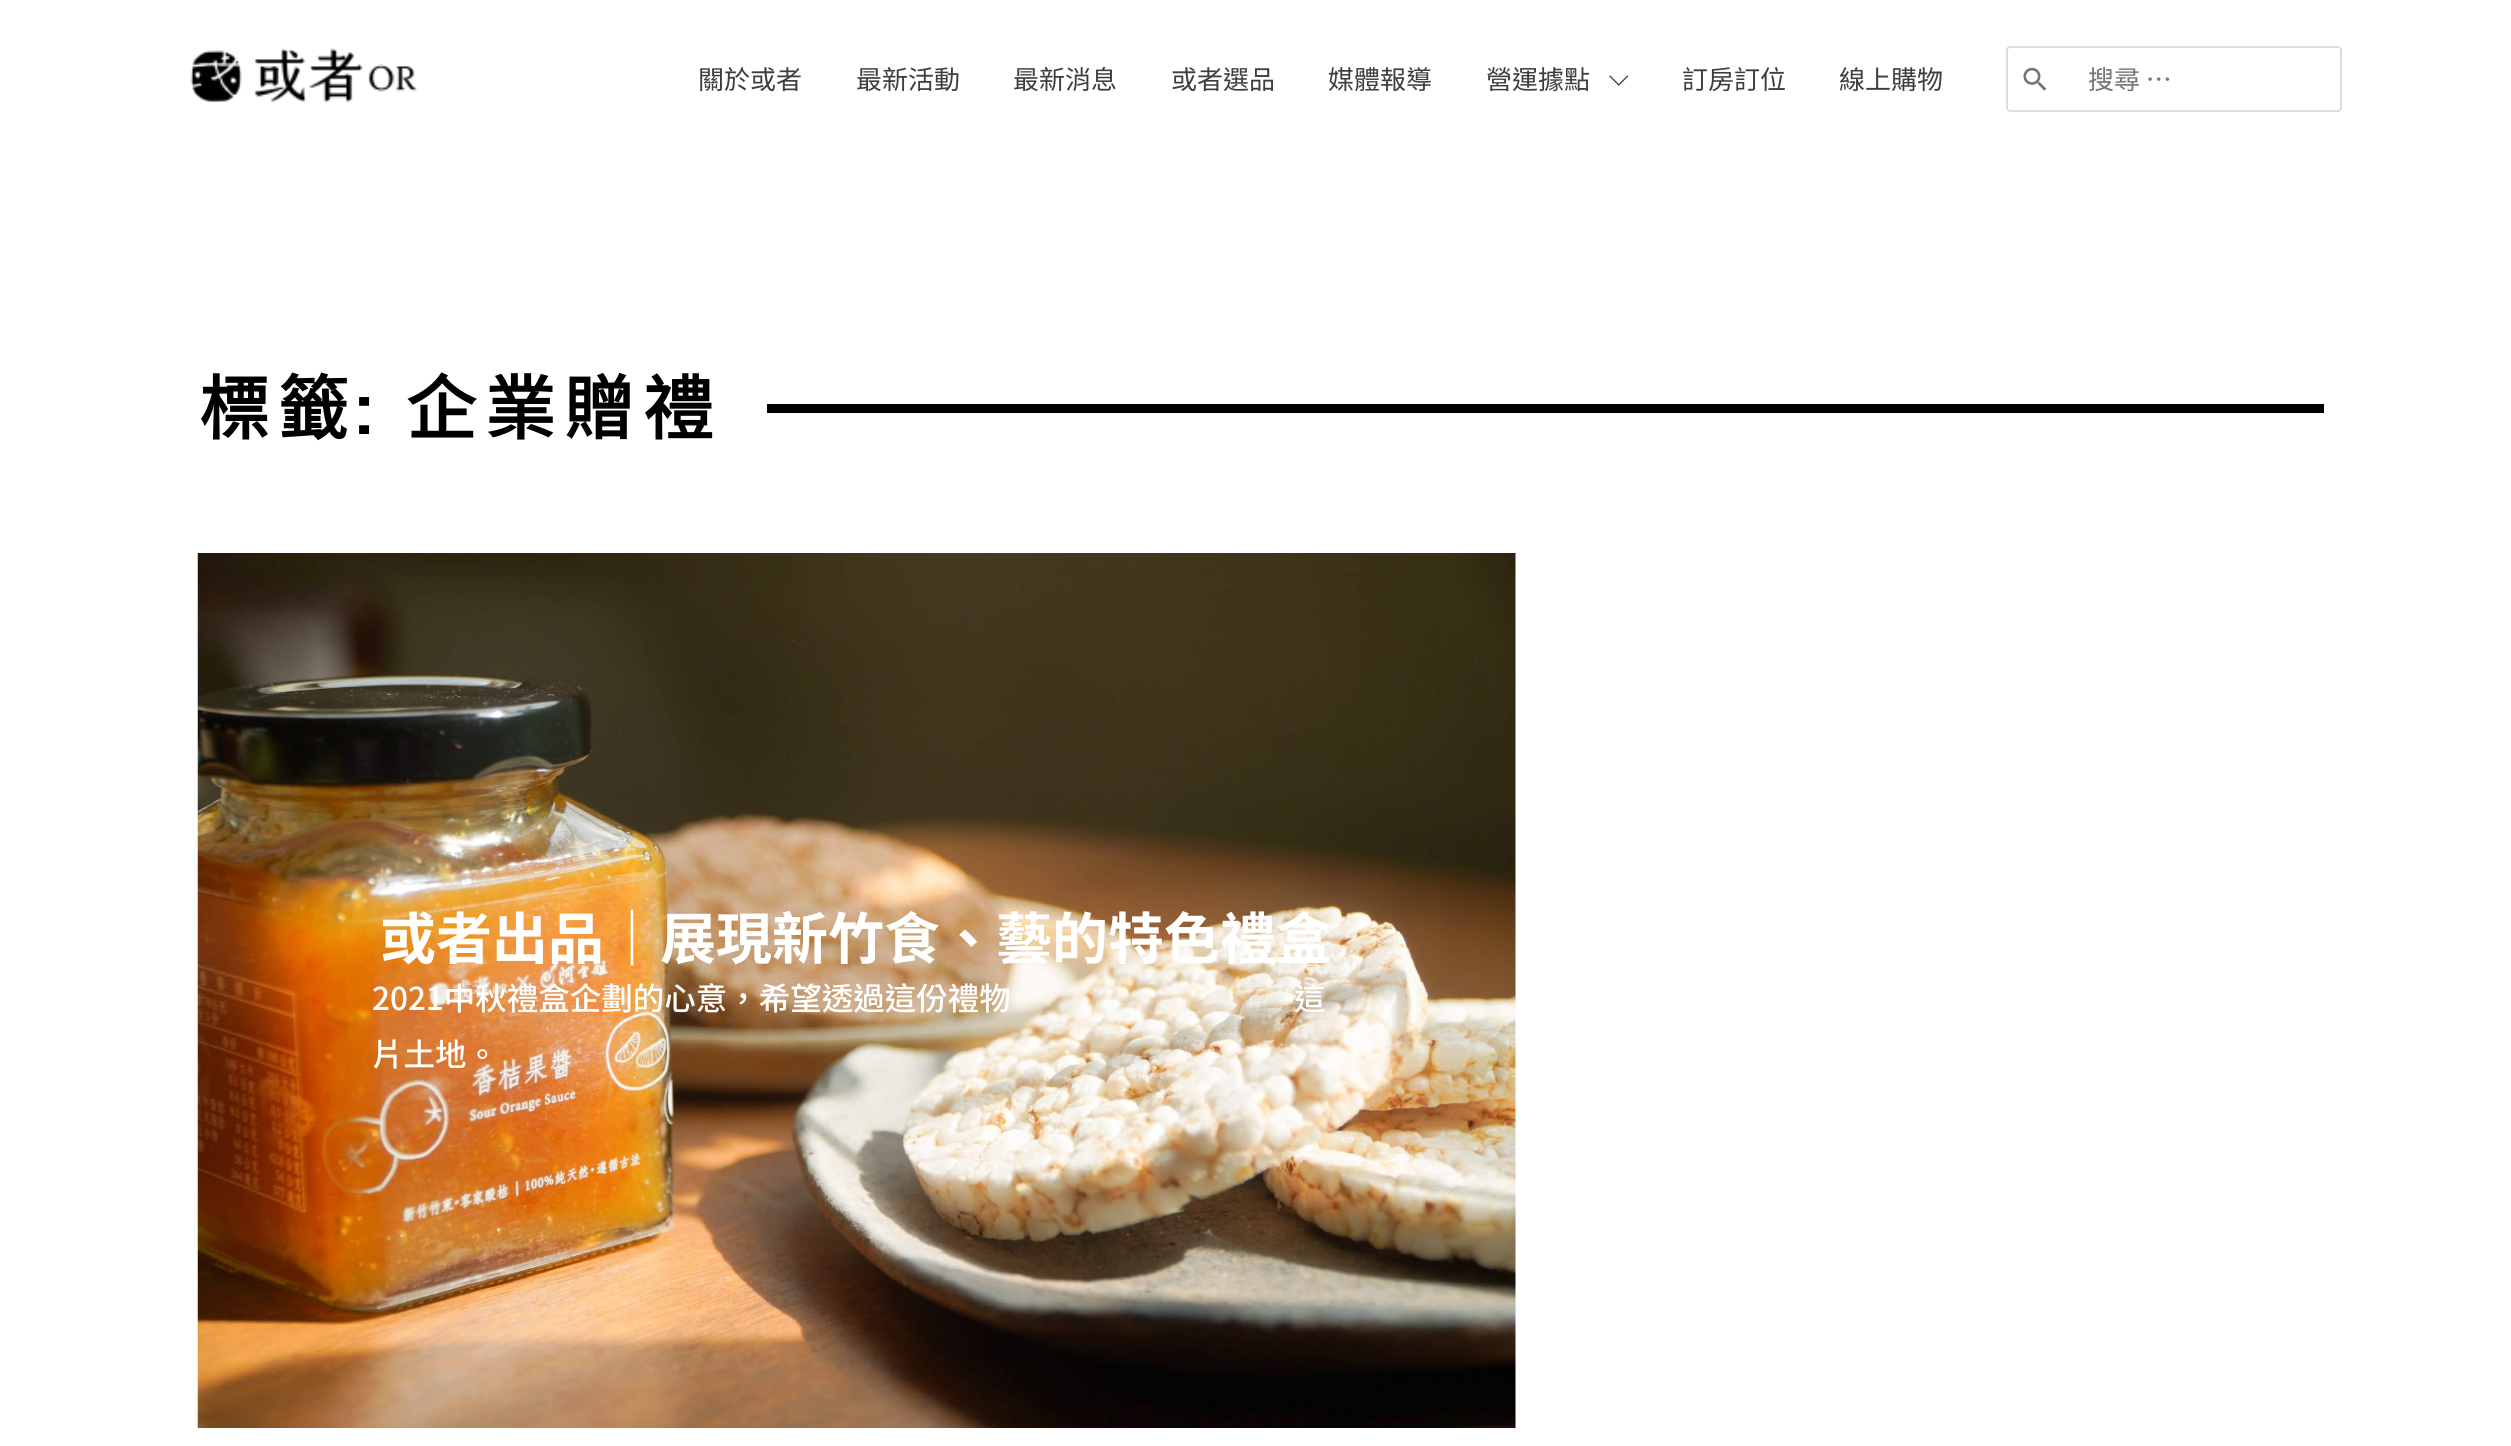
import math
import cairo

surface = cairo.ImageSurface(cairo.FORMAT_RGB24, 2511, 1446)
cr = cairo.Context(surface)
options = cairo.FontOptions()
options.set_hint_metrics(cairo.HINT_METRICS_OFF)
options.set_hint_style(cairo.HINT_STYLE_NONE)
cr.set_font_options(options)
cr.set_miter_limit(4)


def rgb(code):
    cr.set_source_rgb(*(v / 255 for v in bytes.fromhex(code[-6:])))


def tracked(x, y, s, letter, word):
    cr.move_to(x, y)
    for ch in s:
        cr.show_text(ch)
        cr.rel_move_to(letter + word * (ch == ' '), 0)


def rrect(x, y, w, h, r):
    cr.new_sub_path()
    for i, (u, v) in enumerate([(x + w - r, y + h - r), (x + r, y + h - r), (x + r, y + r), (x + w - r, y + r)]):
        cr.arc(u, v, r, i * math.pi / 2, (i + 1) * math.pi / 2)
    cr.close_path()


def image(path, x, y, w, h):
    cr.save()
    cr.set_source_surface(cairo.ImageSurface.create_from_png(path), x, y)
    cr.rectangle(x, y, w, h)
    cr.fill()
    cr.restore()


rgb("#ffffff")
cr.paint()
image("img/1.png", 190, 48, 227, 54)
image("img/2.png", 1609, 75, 20, 11)
rrect(2007, 47, 334, 64, 3)
rgb("#dddddd")
cr.stroke()
image("img/3.png", 2023, 67, 24, 24)
rgb("#000000")
cr.rectangle(767, 404, 1557, 9)
cr.fill()
image("img/4.png", 197, 553, 1319, 875)
cr.select_font_face("Noto Sans TC")
cr.set_font_size(26)
rgb("#3e3e3e")
for x, y, s in [
    (698, 89, "關於或者"),
    (856, 89, "最新活動"),
    (1013, 89, "最新消息"),
    (1171, 89, "或者選品"),
    (1328, 89, "媒體報導"),
    (1486, 89, "營運據點"),
    (1682, 89, "訂房訂位"),
    (1839, 89, "線上購物"),
]:
    cr.move_to(x, y)
    cr.show_text(s)
rgb("#757575")
cr.move_to(2088, 89)
cr.show_text("搜尋 …")
cr.select_font_face("Noto Sans CJK TC", cairo.FONT_SLANT_NORMAL, cairo.FONT_WEIGHT_BOLD)
cr.set_font_size(70)
rgb("#000000")
tracked(199, 434, "標籤", 9, 0)
cr.select_font_face("Roboto Slab", cairo.FONT_SLANT_NORMAL, cairo.FONT_WEIGHT_BOLD)
tracked(356, 434, ":", 9, 0)
cr.select_font_face("Noto Sans CJK TC", cairo.FONT_SLANT_NORMAL, cairo.FONT_WEIGHT_BOLD)
tracked(406, 434, "企業贈禮", 9, 0)
cr.select_font_face("Noto Sans TC", cairo.FONT_SLANT_NORMAL, cairo.FONT_WEIGHT_BOLD)
cr.set_font_size(56)
rgb("#ffffff")
cr.move_to(380, 959)
cr.show_text("或者出品｜展現新竹食、藝的特色禮盒")
cr.select_font_face("Noto Sans TC Medium")
cr.set_font_size(31.5)
for x, y, s in [
    (372, 1010, "2021中秋禮盒企劃的心意，希望透過這份禮物"),
    (1294, 1010, "這"),
    (372, 1066, "片土地。"),
]:
    cr.move_to(x, y)
    cr.show_text(s)
surface.write_to_png("page.png")
